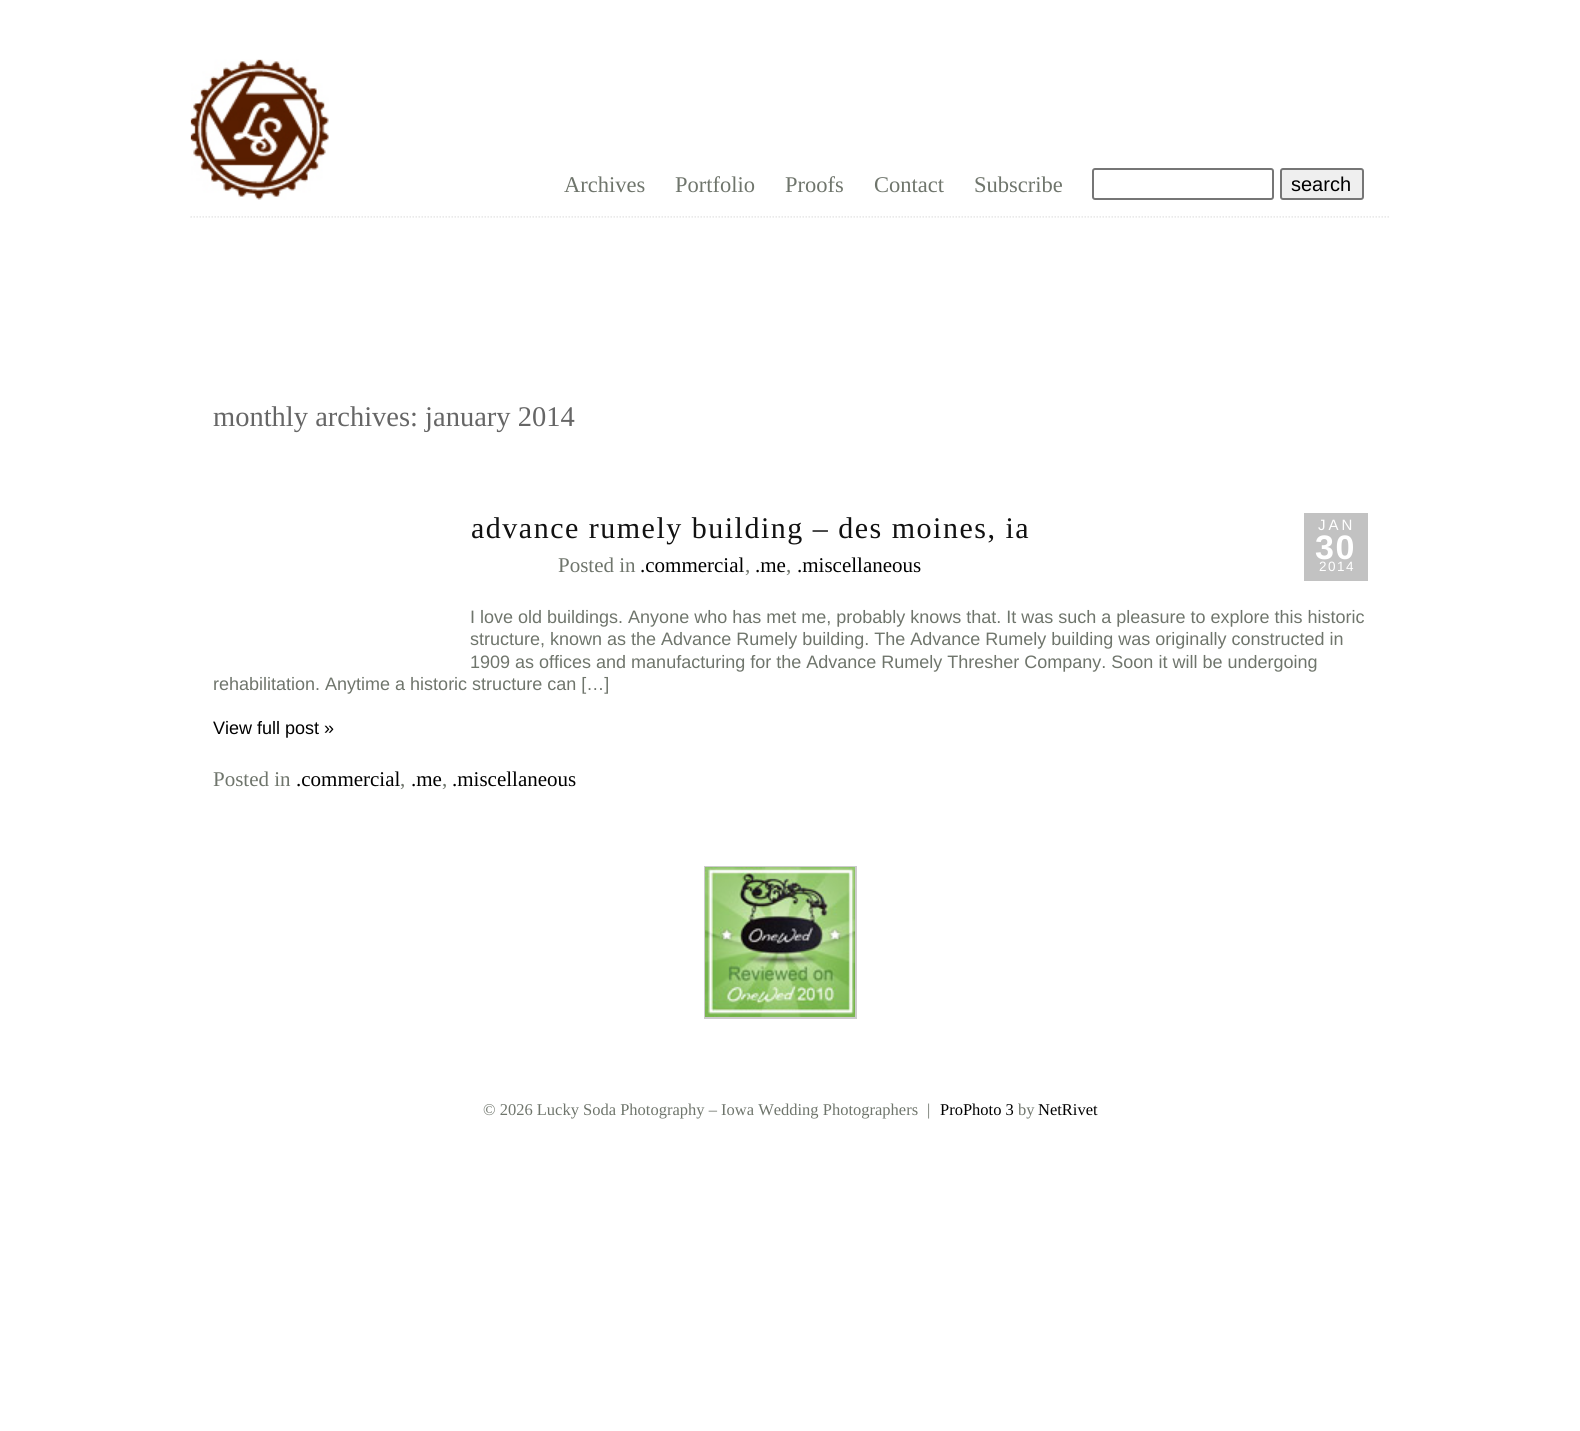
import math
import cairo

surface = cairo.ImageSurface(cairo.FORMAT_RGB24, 1580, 1431)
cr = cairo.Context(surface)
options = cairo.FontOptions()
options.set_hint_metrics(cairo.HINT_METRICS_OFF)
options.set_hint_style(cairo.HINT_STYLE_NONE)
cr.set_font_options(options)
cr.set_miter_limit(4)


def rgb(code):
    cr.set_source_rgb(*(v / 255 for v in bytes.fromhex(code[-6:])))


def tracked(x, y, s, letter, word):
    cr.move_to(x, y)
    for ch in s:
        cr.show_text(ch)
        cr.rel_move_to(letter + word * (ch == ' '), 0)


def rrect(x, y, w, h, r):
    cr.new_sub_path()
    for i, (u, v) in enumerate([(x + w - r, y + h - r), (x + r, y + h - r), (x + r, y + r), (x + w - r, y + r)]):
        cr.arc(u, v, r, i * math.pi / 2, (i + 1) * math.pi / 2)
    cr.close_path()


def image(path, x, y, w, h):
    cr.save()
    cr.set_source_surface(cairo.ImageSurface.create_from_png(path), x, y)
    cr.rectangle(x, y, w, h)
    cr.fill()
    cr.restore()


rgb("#ffffff")
cr.paint()
image("img/1.png", 190, 59, 139, 141)
rrect(1093, 169, 180, 30, 2)
rgb("#767676")
cr.stroke()
rgb("#efefef")
rrect(1281, 169, 82, 30, 2)
cr.fill_preserve()
rgb("#767676")
cr.stroke()
cr.new_path()
cr.move_to(190.5, 217)
cr.line_to(1390.5, 217)
rgb("#e3e3e3")
cr.set_line_width(1.5)
cr.set_dash([1.5, 1.5])
cr.stroke()
cr.set_source_rgba(1, 1, 1, 0.25)
cr.rectangle(191, 217, 1198, 1)
cr.fill()
rgb("#c2c2c2")
cr.rectangle(1304, 513, 64, 68)
cr.fill()
cr.rectangle(705, 867, 151, 151)
rgb("#cccccc")
cr.set_line_width(2)
cr.set_dash([])
cr.stroke()
image("img/2.png", 705, 867, 150, 150)
cr.select_font_face("Liberation Serif")
cr.set_font_size(22.5)
rgb("#6f756c")
for x, y, s in [
    (564, 192, "Archives"),
    (675, 192, "Portfolio"),
    (785, 192, "Proofs"),
    (874, 192, "Contact"),
    (974, 192, "Subscribe"),
]:
    cr.move_to(x, y)
    cr.show_text(s)
cr.select_font_face("Liberation Sans")
cr.set_font_size(20)
rgb("#000000")
cr.move_to(1291, 191)
cr.show_text("search")
cr.select_font_face("Liberation Serif")
cr.set_font_size(28.5)
rgb("#666666")
cr.move_to(213, 426)
cr.show_text("monthly archives: january 2014")
cr.set_font_size(30)
rgb("#111111")
tracked(471, 538, "advance rumely building – des moines, ia", 1.5, 0)
cr.select_font_face("Liberation Sans")
cr.set_font_size(15)
rgb("#ffffff")
tracked(1318, 530, "JAN", 3, 0)
cr.select_font_face("Liberation Sans", cairo.FONT_SLANT_NORMAL, cairo.FONT_WEIGHT_BOLD)
cr.set_font_size(34)
tracked(1315, 559, "30", 1.5, 0)
cr.select_font_face("Liberation Sans")
cr.set_font_size(13.5)
tracked(1319, 571, "2014", 1.5, 0)
cr.select_font_face("Liberation Serif")
cr.set_font_size(21)
rgb("#6f756c")
cr.move_to(558, 572)
cr.show_text("Posted in")
rgb("#000000")
cr.move_to(640, 572)
cr.show_text(".commercial")
rgb("#6f756c")
cr.move_to(745, 572)
cr.show_text(",")
rgb("#000000")
cr.move_to(755, 572)
cr.show_text(".me")
rgb("#6f756c")
cr.move_to(786, 572)
cr.show_text(",")
rgb("#000000")
cr.move_to(797, 572)
cr.show_text(".miscellaneous")
cr.select_font_face("Liberation Sans")
cr.set_font_size(18)
rgb("#6f756c")
for x, y, s in [
    (470, 623, "I love old buildings. Anyone who has met me, probably knows that. It was such a pleasure to explore this historic"),
    (470, 645, "structure, known as the Advance Rumely building. The Advance Rumely building was originally constructed in"),
    (470, 668, "1909 as offices and manufacturing for the Advance Rumely Thresher Company. Soon it will be undergoing"),
    (213, 690, "rehabilitation. Anytime a historic structure can […]"),
]:
    cr.move_to(x, y)
    cr.show_text(s)
rgb("#000000")
cr.move_to(213, 734)
cr.show_text("View full post »")
cr.select_font_face("Liberation Serif")
cr.set_font_size(21)
rgb("#6f756c")
cr.move_to(213, 786)
cr.show_text("Posted in")
rgb("#000000")
cr.move_to(296, 786)
cr.show_text(".commercial")
rgb("#6f756c")
cr.move_to(400, 786)
cr.show_text(",")
rgb("#000000")
cr.move_to(411, 786)
cr.show_text(".me")
rgb("#6f756c")
cr.move_to(442, 786)
cr.show_text(",")
rgb("#000000")
cr.move_to(452, 786)
cr.show_text(".miscellaneous")
cr.set_font_size(16.5)
rgb("#6f756c")
cr.move_to(483, 1115)
cr.show_text("© 2026 Lucky Soda Photography – Iowa Wedding Photographers")
cr.move_to(927, 1115)
cr.show_text("|")
rgb("#000000")
cr.move_to(940, 1115)
cr.show_text("ProPhoto 3")
rgb("#6f756c")
cr.move_to(1018, 1115)
cr.show_text("by")
rgb("#000000")
cr.move_to(1038, 1115)
cr.show_text("NetRivet")
surface.write_to_png("page.png")
